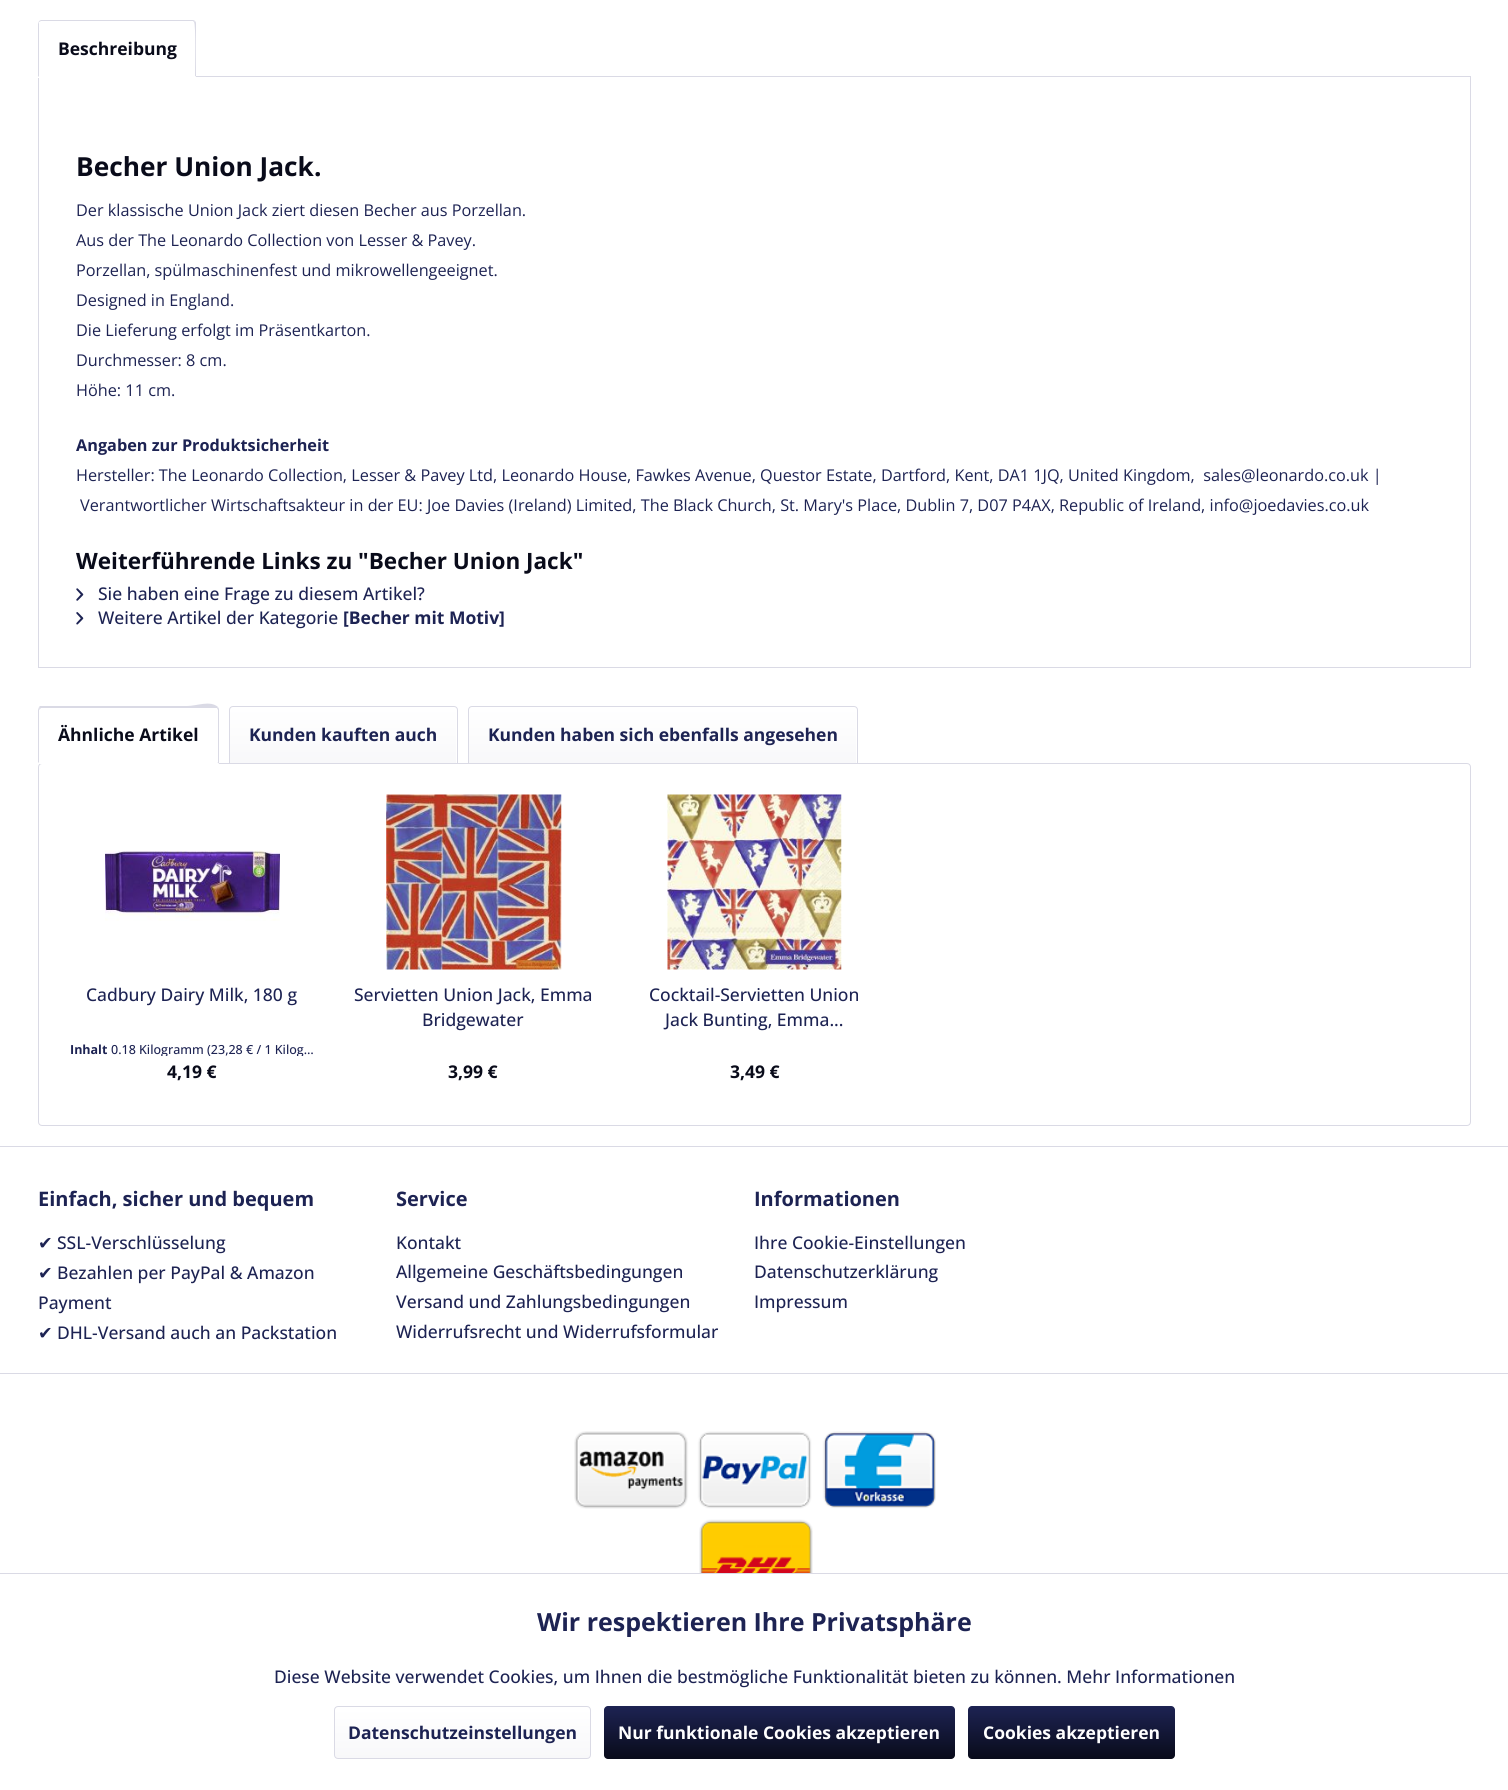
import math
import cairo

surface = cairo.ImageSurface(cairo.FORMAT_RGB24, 1508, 1790)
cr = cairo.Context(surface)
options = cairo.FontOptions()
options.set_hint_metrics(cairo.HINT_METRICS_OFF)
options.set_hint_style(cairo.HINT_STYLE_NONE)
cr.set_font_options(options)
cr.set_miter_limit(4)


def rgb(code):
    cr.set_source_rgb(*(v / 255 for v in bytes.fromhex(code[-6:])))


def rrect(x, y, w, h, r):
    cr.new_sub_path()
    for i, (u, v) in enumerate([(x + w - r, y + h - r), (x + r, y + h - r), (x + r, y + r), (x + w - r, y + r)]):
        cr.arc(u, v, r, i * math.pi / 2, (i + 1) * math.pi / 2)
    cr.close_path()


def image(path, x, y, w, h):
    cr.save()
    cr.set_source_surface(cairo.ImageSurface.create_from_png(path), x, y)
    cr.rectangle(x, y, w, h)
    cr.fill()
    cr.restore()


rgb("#ffffff")
cr.paint()
cr.rectangle(38.5, 76.5, 1432, 591)
rgb("#dadae5")
cr.set_line_width(1)
cr.stroke()
rgb("#ffffff")
cr.new_path()
cr.move_to(42, 20)
cr.line_to(192, 20)
cr.curve_to(194, 20, 196, 22, 196, 24)
cr.line_to(196, 78)
cr.line_to(38, 78)
cr.line_to(38, 24)
cr.curve_to(38, 22, 40, 20, 42, 20)
cr.close_path()
cr.fill()
rgb("#dadae5")
cr.new_path()
cr.move_to(41, 20)
cr.line_to(39, 21)
cr.line_to(39, 22)
cr.line_to(41, 21)
cr.line_to(193, 21)
cr.line_to(194, 22)
cr.line_to(195, 21)
cr.curve_to(194, 20, 193, 20, 192, 20)
cr.close_path()
cr.fill()
cr.new_path()
cr.move_to(195, 21)
cr.curve_to(196, 22, 196, 23, 196, 24)
cr.line_to(196, 77)
cr.line_to(195, 76)
cr.curve_to(195, 70, 196, 24, 194, 22)
cr.close_path()
cr.fill()
rgb("#ffffff")
cr.new_path()
cr.move_to(38, 78)
cr.line_to(39, 76)
cr.line_to(195, 76)
cr.line_to(196, 77)
cr.close_path()
cr.fill()
rgb("#dadae5")
cr.new_path()
cr.move_to(39, 21)
cr.line_to(38, 24)
cr.line_to(38, 77)
cr.line_to(39, 76)
cr.line_to(39, 24)
cr.line_to(39, 22)
cr.close_path()
cr.fill()
image("img/1.png", 76, 588, 8, 13)
image("img/2.png", 76, 612, 8, 13)
rrect(38.5, 763.5, 1432, 362, 3.5)
cr.stroke()
rgb("#ffffff")
cr.new_path()
cr.move_to(42, 706)
cr.line_to(215, 706)
cr.curve_to(217, 706, 219, 708, 219, 710)
cr.line_to(219, 764)
cr.line_to(38, 764)
cr.line_to(38, 710)
cr.curve_to(38, 708, 40, 706, 42, 706)
cr.close_path()
cr.fill()
rgb("#dadae5")
cr.new_path()
cr.move_to(41, 708)
cr.line_to(40, 709)
cr.line_to(39, 707)
cr.line_to(40, 706)
cr.line_to(187, 706)
cr.curve_to(197, 706, 210, 700, 218, 707)
cr.line_to(217, 708)
cr.line_to(215, 708)
cr.close_path()
cr.fill()
cr.new_path()
cr.move_to(218, 707)
cr.line_to(219, 709)
cr.line_to(219, 764)
cr.line_to(217, 762)
cr.line_to(218, 762)
cr.line_to(218, 710)
cr.line_to(217, 708)
cr.close_path()
cr.fill()
rgb("#ffffff")
cr.new_path()
cr.move_to(219, 764)
cr.line_to(38, 764)
cr.line_to(39, 762)
cr.line_to(217, 762)
cr.close_path()
cr.fill()
rgb("#dadae5")
cr.new_path()
cr.move_to(38, 763)
cr.line_to(38, 710)
cr.line_to(39, 707)
cr.line_to(40, 709)
cr.line_to(39, 710)
cr.line_to(39, 762)
cr.close_path()
cr.fill()
gradient = cairo.LinearGradient(343, 708, 343, 763)
gradient.add_color_stop_rgba(0, 1, 1, 1, 1)
gradient.add_color_stop_rgba(1, 0.973, 0.973, 0.98, 1)
cr.set_source(gradient)
cr.new_path()
cr.move_to(232.5, 708)
cr.line_to(453.5, 708)
cr.curve_to(455, 708, 456, 709, 456, 710.5)
cr.line_to(456, 763)
cr.line_to(230, 763)
cr.line_to(230, 710.5)
cr.curve_to(230, 709, 231, 708, 232.5, 708)
cr.close_path()
cr.fill()
cr.new_path()
cr.move_to(233, 706.5)
cr.line_to(454, 706.5)
cr.curve_to(456, 706.5, 457.5, 708, 457.5, 710)
cr.line_to(457.5, 763.5)
cr.line_to(229.5, 763.5)
cr.line_to(229.5, 710)
cr.curve_to(229.5, 708, 231, 706.5, 233, 706.5)
cr.close_path()
rgb("#dadae5")
cr.stroke()
gradient = cairo.LinearGradient(663, 708, 663, 763)
gradient.add_color_stop_rgba(0, 1, 1, 1, 1)
gradient.add_color_stop_rgba(1, 0.973, 0.973, 0.98, 1)
cr.set_source(gradient)
cr.new_path()
cr.move_to(471.5, 708)
cr.line_to(853.5, 708)
cr.curve_to(855, 708, 856, 709, 856, 710.5)
cr.line_to(856, 763)
cr.line_to(469, 763)
cr.line_to(469, 710.5)
cr.curve_to(469, 709, 470, 708, 471.5, 708)
cr.close_path()
cr.fill()
cr.new_path()
cr.move_to(472, 706.5)
cr.line_to(854, 706.5)
cr.curve_to(856, 706.5, 857.5, 708, 857.5, 710)
cr.line_to(857.5, 763.5)
cr.line_to(468.5, 763.5)
cr.line_to(468.5, 710)
cr.curve_to(468.5, 708, 470, 706.5, 472, 706.5)
cr.close_path()
rgb("#dadae5")
cr.stroke()
image("img/3.png", 105, 850, 175, 71)
image("img/4.png", 386, 794, 176, 176)
image("img/5.png", 667, 794, 175, 176)
cr.rectangle(0, 1146, 1508, 1)
cr.fill()
cr.rectangle(0, 1373, 1508, 1)
cr.fill()
image("img/6.png", 574, 1431, 362, 78)
image("img/7.png", 699, 1519, 114, 54)
cr.rectangle(0, 1573, 1508, 1)
cr.fill()
gradient = cairo.LinearGradient(463, 1708, 463, 1758)
gradient.add_color_stop_rgba(0, 1, 1, 1, 1)
gradient.add_color_stop_rgba(1, 0.973, 0.973, 0.98, 1)
cr.set_source(gradient)
rrect(335, 1708, 255, 50, 2.5)
cr.fill()
rrect(334.5, 1706.5, 256, 52, 3.5)
rgb("#dadae5")
cr.stroke()
gradient = cairo.LinearGradient(779, 1706, 779, 1759)
gradient.add_color_stop_rgba(0, 0.114, 0.137, 0.325, 1)
gradient.add_color_stop_rgba(1, 0.035, 0.043, 0.102, 1)
cr.set_source(gradient)
rrect(604, 1706, 351, 53, 4)
cr.fill()
gradient = cairo.LinearGradient(1071, 1706, 1071, 1759)
gradient.add_color_stop_rgba(0, 0.114, 0.137, 0.325, 1)
gradient.add_color_stop_rgba(1, 0.035, 0.043, 0.102, 1)
cr.set_source(gradient)
rrect(968, 1706, 207, 53, 4)
cr.fill()
cr.select_font_face("Open Sans", cairo.FONT_SLANT_NORMAL, cairo.FONT_WEIGHT_BOLD)
cr.set_font_size(17.5)
rgb("#090b1a")
cr.move_to(58, 55)
cr.show_text("Beschreibung")
cr.set_font_size(26.25)
cr.move_to(76, 176)
cr.show_text("Becher Union Jack.")
cr.select_font_face("Open Sans")
cr.set_font_size(16.25)
rgb("#1d2353")
for x, y, s in [
    (76, 216, "Der klassische Union Jack ziert diesen Becher aus Porzellan."),
    (76, 246, "Aus der The Leonardo Collection von Lesser & Pavey."),
    (76, 276, "Porzellan, spülmaschinenfest und mikrowellengeeignet."),
    (76, 306, "Designed in England."),
    (76, 336, "Die Lieferung erfolgt im Präsentkarton."),
    (76, 366, "Durchmesser: 8 cm."),
    (76, 396, "Höhe: 11 cm."),
]:
    cr.move_to(x, y)
    cr.show_text(s)
cr.select_font_face("Open Sans", cairo.FONT_SLANT_NORMAL, cairo.FONT_WEIGHT_BOLD)
cr.move_to(76, 451)
cr.show_text("Angaben zur Produktsicherheit")
cr.select_font_face("Open Sans")
cr.move_to(76, 481)
cr.show_text("Hersteller: The Leonardo Collection, Lesser & Pavey Ltd, Leonardo House, Fawkes Avenue, Questor Estate, Dartford, Kent, DA1 1JQ, United Kingdom,  sales@leonardo.co.uk |")
cr.move_to(80, 511)
cr.show_text("Verantwortlicher Wirtschaftsakteur in der EU: Joe Davies (Ireland) Limited, The Black Church, St. Mary's Place, Dublin 7, D07 P4AX, Republic of Ireland, info@joedavies.co.uk")
cr.select_font_face("Open Sans", cairo.FONT_SLANT_NORMAL, cairo.FONT_WEIGHT_BOLD)
cr.set_font_size(22.5)
rgb("#090b1a")
cr.move_to(76, 569)
cr.show_text("Weiterführende Links zu \"Becher Union Jack\"")
cr.select_font_face("Open Sans Medium")
cr.set_font_size(17.5)
rgb("#1d2353")
cr.move_to(98, 600)
cr.show_text("Sie haben eine Frage zu diesem Artikel?")
cr.move_to(98, 624)
cr.show_text("Weitere Artikel der Kategorie")
cr.select_font_face("Open Sans", cairo.FONT_SLANT_NORMAL, cairo.FONT_WEIGHT_BOLD)
cr.move_to(343, 624)
cr.show_text("[Becher mit Motiv]")
rgb("#090b1a")
cr.move_to(58, 741)
cr.show_text("Ähnliche Artikel")
rgb("#1d2353")
cr.move_to(249, 741)
cr.show_text("Kunden kauften auch")
cr.move_to(488, 741)
cr.show_text("Kunden haben sich ebenfalls angesehen")
cr.select_font_face("Open Sans Medium")
cr.move_to(86, 1001)
cr.show_text("Cadbury Dairy Milk, 180 g")
cr.select_font_face("Open Sans", cairo.FONT_SLANT_NORMAL, cairo.FONT_WEIGHT_BOLD)
cr.set_font_size(12.5)
cr.move_to(70, 1054)
cr.show_text("Inhalt")
cr.save()
cr.rectangle(70, 1039, 244, 17)
cr.clip()
cr.select_font_face("Open Sans Medium")
cr.move_to(111, 1054)
cr.show_text("0.18 Kilogramm (23,28 € / 1 Kilog…")
cr.restore()
cr.set_font_size(17.5)
rgb("#090b1a")
cr.move_to(167, 1078)
cr.show_text("4,19 €")
cr.select_font_face("Open Sans Medium")
rgb("#1d2353")
cr.move_to(354, 1001)
cr.show_text("Servietten Union Jack, Emma")
cr.move_to(422, 1026)
cr.show_text("Bridgewater")
cr.select_font_face("Open Sans", cairo.FONT_SLANT_NORMAL, cairo.FONT_WEIGHT_BOLD)
rgb("#090b1a")
cr.move_to(448, 1078)
cr.show_text("3,99 €")
cr.select_font_face("Open Sans Medium")
rgb("#1d2353")
cr.move_to(649, 1001)
cr.show_text("Cocktail-Servietten Union")
cr.move_to(665, 1026)
cr.show_text("Jack Bunting, Emma...")
cr.select_font_face("Open Sans", cairo.FONT_SLANT_NORMAL, cairo.FONT_WEIGHT_BOLD)
rgb("#090b1a")
cr.move_to(730, 1078)
cr.show_text("3,49 €")
cr.set_font_size(20)
rgb("#1d2353")
cr.move_to(38, 1206)
cr.show_text("Einfach, sicher und bequem")
cr.select_font_face("DejaVu Sans")
cr.set_font_size(17.5)
cr.move_to(38, 1249)
cr.show_text("✔")
cr.select_font_face("Open Sans Medium")
cr.move_to(57, 1249)
cr.show_text("SSL-Verschlüsselung")
cr.select_font_face("DejaVu Sans")
cr.move_to(38, 1279)
cr.show_text("✔")
cr.select_font_face("Open Sans Medium")
cr.move_to(57, 1279)
cr.show_text("Bezahlen per PayPal & Amazon")
cr.move_to(38, 1309)
cr.show_text("Payment")
cr.select_font_face("DejaVu Sans")
cr.move_to(38, 1339)
cr.show_text("✔")
cr.select_font_face("Open Sans Medium")
cr.move_to(57, 1339)
cr.show_text("DHL-Versand auch an Packstation")
cr.select_font_face("Open Sans", cairo.FONT_SLANT_NORMAL, cairo.FONT_WEIGHT_BOLD)
cr.set_font_size(20)
cr.move_to(396, 1206)
cr.show_text("Service")
cr.select_font_face("Open Sans Medium")
cr.set_font_size(17.5)
for x, y, s in [
    (396, 1249, "Kontakt"),
    (396, 1278, "Allgemeine Geschäftsbedingungen"),
    (396, 1308, "Versand und Zahlungsbedingungen"),
    (396, 1338, "Widerrufsrecht und Widerrufsformular"),
]:
    cr.move_to(x, y)
    cr.show_text(s)
cr.select_font_face("Open Sans", cairo.FONT_SLANT_NORMAL, cairo.FONT_WEIGHT_BOLD)
cr.set_font_size(20)
cr.move_to(754, 1206)
cr.show_text("Informationen")
cr.select_font_face("Open Sans Medium")
cr.set_font_size(17.5)
for x, y, s in [
    (754, 1249, "Ihre Cookie-Einstellungen"),
    (754, 1278, "Datenschutzerklärung"),
    (754, 1308, "Impressum"),
]:
    cr.move_to(x, y)
    cr.show_text(s)
cr.select_font_face("Open Sans", cairo.FONT_SLANT_NORMAL, cairo.FONT_WEIGHT_BOLD)
cr.set_font_size(25)
cr.move_to(537, 1631)
cr.show_text("Wir respektieren Ihre Privatsphäre")
cr.select_font_face("Open Sans Medium")
cr.set_font_size(17.5)
cr.move_to(274, 1683)
cr.show_text("Diese Website verwendet Cookies, um Ihnen die bestmögliche Funktionalität bieten zu können. Mehr Informationen")
cr.select_font_face("Open Sans", cairo.FONT_SLANT_NORMAL, cairo.FONT_WEIGHT_BOLD)
cr.move_to(348, 1739)
cr.show_text("Datenschutzeinstellungen")
rgb("#ffffff")
cr.move_to(618, 1739)
cr.show_text("Nur funktionale Cookies akzeptieren")
cr.move_to(983, 1739)
cr.show_text("Cookies akzeptieren")
surface.write_to_png("page.png")
